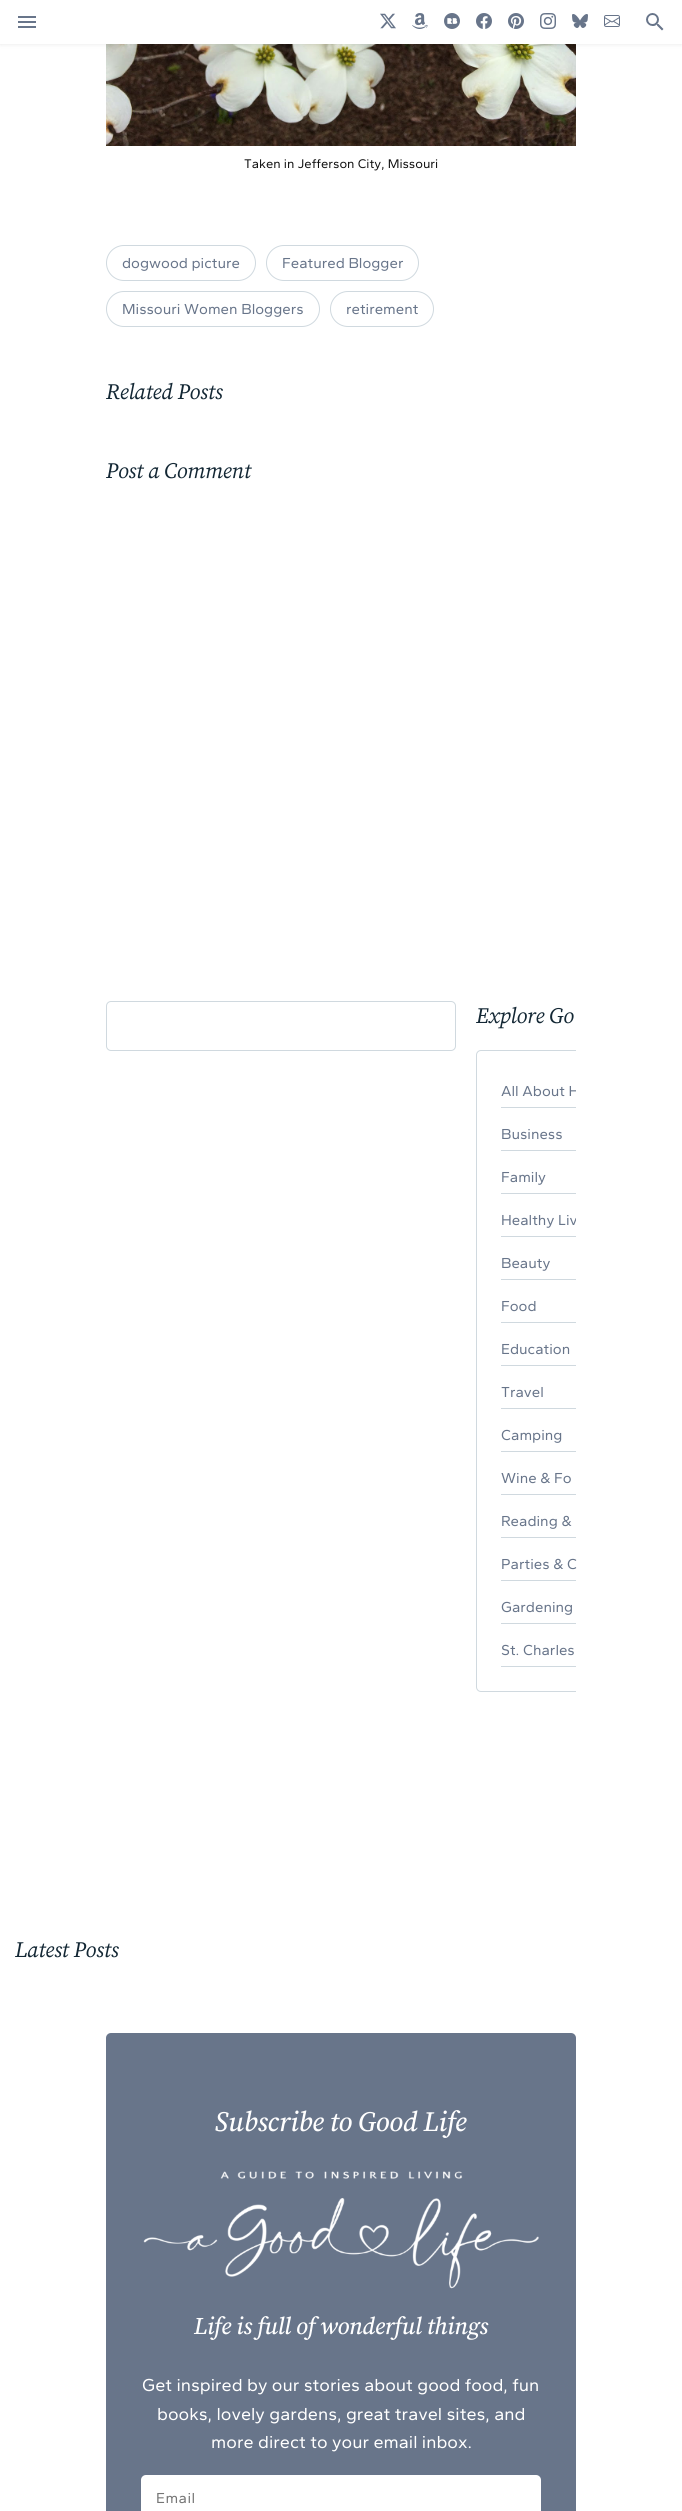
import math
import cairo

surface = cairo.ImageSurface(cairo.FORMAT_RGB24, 682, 2511)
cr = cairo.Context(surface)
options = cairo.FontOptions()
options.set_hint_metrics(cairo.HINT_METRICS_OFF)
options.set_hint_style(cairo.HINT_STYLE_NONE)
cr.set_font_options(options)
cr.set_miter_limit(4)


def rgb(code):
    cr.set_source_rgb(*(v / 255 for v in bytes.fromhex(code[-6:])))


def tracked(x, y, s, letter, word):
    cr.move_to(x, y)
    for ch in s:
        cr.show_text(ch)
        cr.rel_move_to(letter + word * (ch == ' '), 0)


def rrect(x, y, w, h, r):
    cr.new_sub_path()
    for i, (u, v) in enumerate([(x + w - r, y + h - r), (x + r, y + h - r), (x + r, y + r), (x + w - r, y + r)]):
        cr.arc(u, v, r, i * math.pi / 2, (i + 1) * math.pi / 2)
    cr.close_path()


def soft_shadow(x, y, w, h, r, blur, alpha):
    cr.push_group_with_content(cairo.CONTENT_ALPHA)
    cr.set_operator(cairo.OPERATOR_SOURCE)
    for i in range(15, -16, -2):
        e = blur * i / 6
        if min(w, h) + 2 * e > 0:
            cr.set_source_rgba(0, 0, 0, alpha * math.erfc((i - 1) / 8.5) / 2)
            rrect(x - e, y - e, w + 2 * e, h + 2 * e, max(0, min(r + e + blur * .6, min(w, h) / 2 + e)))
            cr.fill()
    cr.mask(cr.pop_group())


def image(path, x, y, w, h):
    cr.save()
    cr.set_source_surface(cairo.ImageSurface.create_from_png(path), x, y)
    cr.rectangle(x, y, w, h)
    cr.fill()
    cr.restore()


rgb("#ffffff")
cr.paint()
image("img/11.png", 106, 44, 470, 102)
rgb("#000000")
soft_shadow(0, 0, 682, 44, 0, 2.5, 0.1)
rgb("#ffffff")
cr.rectangle(0, 0, 682, 44)
cr.fill()
image("img/1.png", 18, 16, 18, 12)
image("img/2.png", 380, 13, 16, 16)
image("img/3.png", 412, 13, 16, 16)
image("img/4.png", 444, 13, 16, 16)
image("img/5.png", 476, 13, 16, 16)
image("img/6.png", 508, 13, 16, 16)
image("img/7.png", 540, 13, 16, 16)
image("img/8.png", 572, 14, 16, 14)
image("img/9.png", 604, 15, 16, 12)
image("img/10.png", 646, 13, 18, 18)
rrect(106.5, 245.5, 149, 35, 17.5)
rgb("#d0d9df")
cr.set_line_width(1)
cr.stroke()
rrect(266.5, 245.5, 152, 35, 17.5)
cr.stroke()
rrect(106.5, 291.5, 213, 35, 17.5)
cr.stroke()
rrect(330.5, 291.5, 103, 35, 17.5)
cr.stroke()
rrect(106.5, 1001.5, 349, 49, 4.5)
cr.stroke()
cr.save()
cr.rectangle(106, 1001, 470, 864)
cr.clip()
rrect(476.5, 1050.5, 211, 641, 4.5)
cr.stroke()
cr.restore()
for x, y, w, h, color in [
    (501, 1107, 75, 1, "#d0d9df"),
    (501, 1150, 75, 1, "#d0d9df"),
    (501, 1193, 75, 1, "#d0d9df"),
    (501, 1236, 75, 1, "#d0d9df"),
    (501, 1279, 75, 1, "#d0d9df"),
    (501, 1322, 75, 1, "#d0d9df"),
    (501, 1365, 75, 1, "#d0d9df"),
    (501, 1408, 75, 1, "#d0d9df"),
    (501, 1451, 75, 1, "#d0d9df"),
    (501, 1494, 75, 1, "#d0d9df"),
    (501, 1537, 75, 1, "#d0d9df"),
    (501, 1580, 75, 1, "#d0d9df"),
    (501, 1623, 75, 1, "#d0d9df"),
    (501, 1666, 75, 1, "#d0d9df"),
]:
    rgb(color)
    cr.rectangle(x, y, w, h)
    cr.fill()
rgb("#68758a")
rrect(106, 2033, 470, 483, 5)
cr.fill()
image("img/12.png", 143, 2171, 396, 118)
rgb("#ffffff")
rrect(141, 2475, 400, 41, 5)
cr.fill()
cr.select_font_face("Gantari")
cr.set_font_size(13)
rgb("#111111")
cr.move_to(244, 168)
cr.show_text("Taken in Jefferson City, Missouri")
cr.set_font_size(15)
rgb("#68758a")
for x, y, s in [
    (122, 268, "dogwood picture"),
    (282, 268, "Featured Blogger"),
    (122, 314, "Missouri Women Bloggers"),
    (346, 314, "retirement"),
]:
    cr.move_to(x, y)
    cr.show_text(s)
cr.select_font_face("Source Serif 4", cairo.FONT_SLANT_ITALIC)
cr.set_font_size(22)
rgb("#132734")
for x, y, s in [
    (106, 399, "Related Posts"),
    (106, 478, "Post a Comment"),
    (476, 1023, "Explore Go"),
]:
    tracked(x, y, s, -0.25, 0)
cr.save()
cr.rectangle(501, 1075, 75, 32)
cr.clip()
cr.select_font_face("Gantari")
cr.set_font_size(15)
rgb("#68758a")
cr.move_to(501, 1096)
cr.show_text("All About H")
cr.restore()
cr.select_font_face("Gantari")
cr.set_font_size(15)
rgb("#68758a")
cr.move_to(501, 1139)
cr.show_text("Business")
cr.move_to(501, 1182)
cr.show_text("Family")
cr.save()
cr.rectangle(501, 1204, 75, 32)
cr.clip()
cr.move_to(501, 1225)
cr.show_text("Healthy Liv")
cr.restore()
for x, y, s in [
    (501, 1268, "Beauty"),
    (501, 1311, "Food"),
    (501, 1354, "Education"),
    (501, 1397, "Travel"),
    (501, 1440, "Camping"),
    (501, 1483, "Wine & Fo"),
    (501, 1526, "Reading &"),
    (501, 1569, "Parties & C"),
    (501, 1612, "Gardening"),
    (501, 1655, "St. Charles"),
]:
    cr.move_to(x, y)
    cr.show_text(s)
cr.select_font_face("Source Serif 4", cairo.FONT_SLANT_ITALIC)
cr.set_font_size(22)
rgb("#132734")
tracked(15, 1957, "Latest Posts", -0.25, 0)
cr.select_font_face("Source Serif 4 Medium", cairo.FONT_SLANT_ITALIC)
cr.set_font_size(28)
rgb("#ffffff")
tracked(215, 2131, "Subscribe to Good Life", -0.25, 0)
cr.select_font_face("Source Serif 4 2 Medium", cairo.FONT_SLANT_ITALIC)
cr.set_font_size(24)
tracked(194, 2334, "Life is full of wonderful things", -0.25, 0)
cr.select_font_face("Gantari")
cr.set_font_size(18)
for x, y, s in [
    (142, 2391, "Get inspired by our stories about good food, fun"),
    (157, 2420, "books, lovely gardens, great travel sites, and"),
    (211, 2448, "more direct to your email inbox."),
]:
    cr.move_to(x, y)
    cr.show_text(s)
cr.set_font_size(15)
rgb("#757575")
tracked(156, 2503, "Email", 0.5, 0)
surface.write_to_png("page.png")
